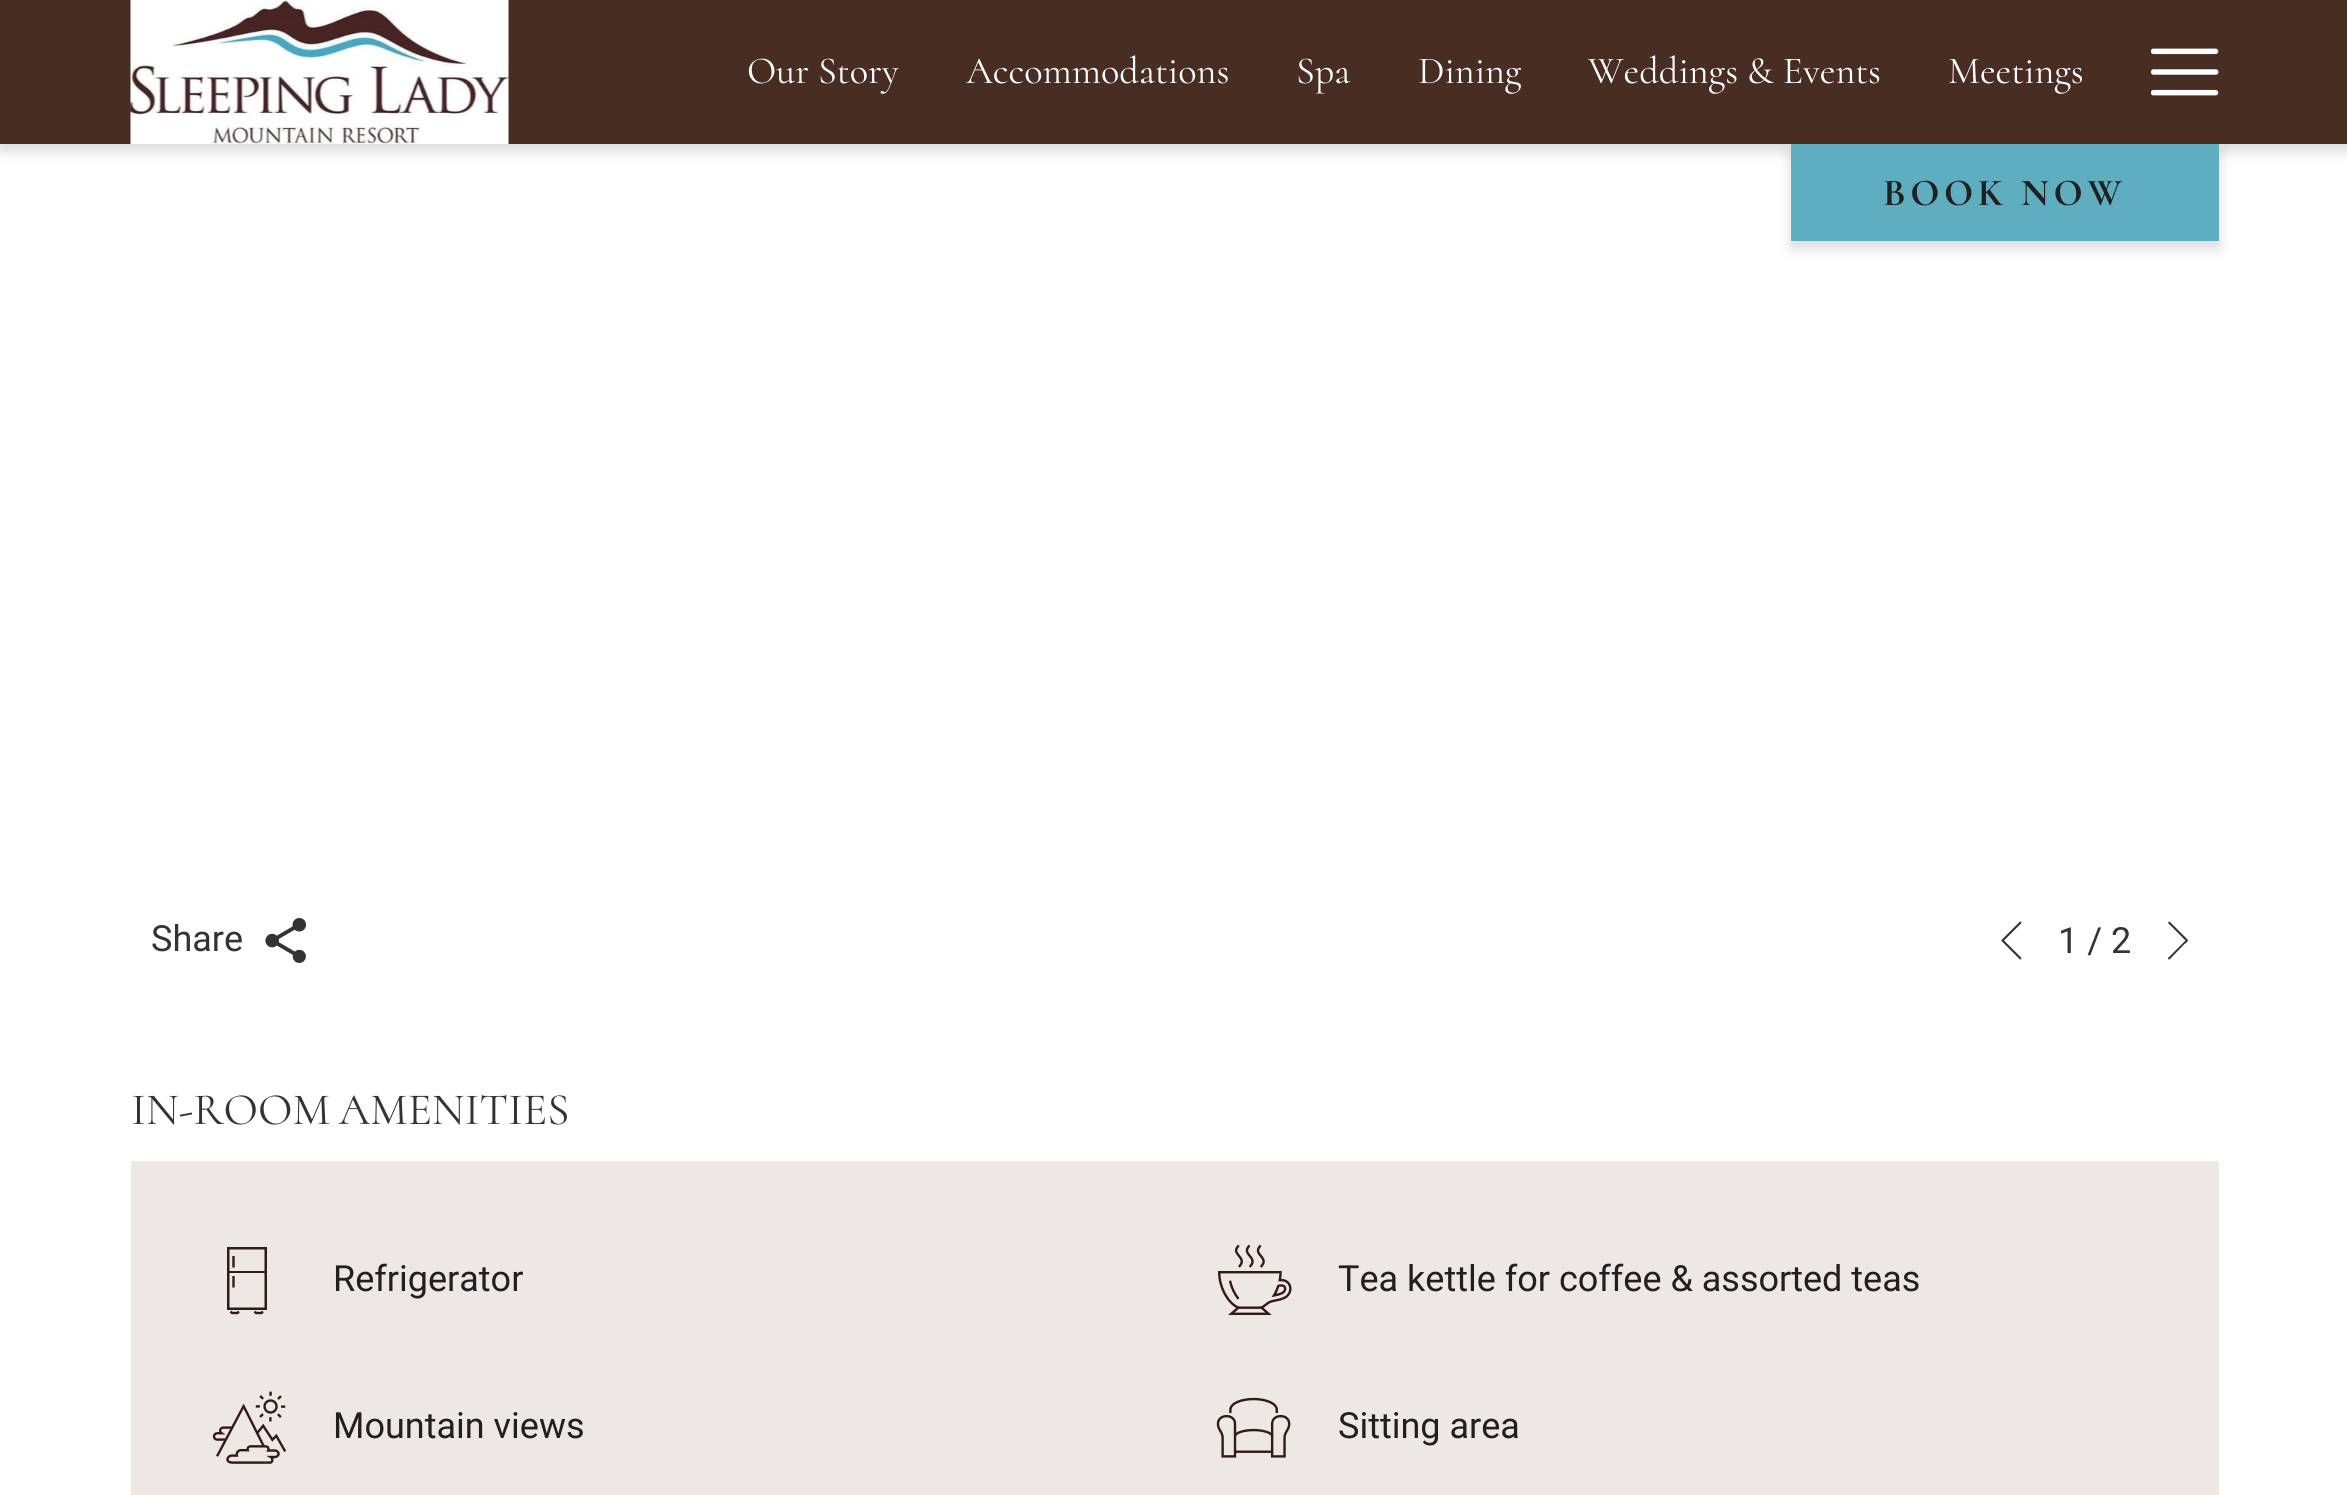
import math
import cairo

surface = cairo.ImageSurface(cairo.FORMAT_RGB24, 2347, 1495)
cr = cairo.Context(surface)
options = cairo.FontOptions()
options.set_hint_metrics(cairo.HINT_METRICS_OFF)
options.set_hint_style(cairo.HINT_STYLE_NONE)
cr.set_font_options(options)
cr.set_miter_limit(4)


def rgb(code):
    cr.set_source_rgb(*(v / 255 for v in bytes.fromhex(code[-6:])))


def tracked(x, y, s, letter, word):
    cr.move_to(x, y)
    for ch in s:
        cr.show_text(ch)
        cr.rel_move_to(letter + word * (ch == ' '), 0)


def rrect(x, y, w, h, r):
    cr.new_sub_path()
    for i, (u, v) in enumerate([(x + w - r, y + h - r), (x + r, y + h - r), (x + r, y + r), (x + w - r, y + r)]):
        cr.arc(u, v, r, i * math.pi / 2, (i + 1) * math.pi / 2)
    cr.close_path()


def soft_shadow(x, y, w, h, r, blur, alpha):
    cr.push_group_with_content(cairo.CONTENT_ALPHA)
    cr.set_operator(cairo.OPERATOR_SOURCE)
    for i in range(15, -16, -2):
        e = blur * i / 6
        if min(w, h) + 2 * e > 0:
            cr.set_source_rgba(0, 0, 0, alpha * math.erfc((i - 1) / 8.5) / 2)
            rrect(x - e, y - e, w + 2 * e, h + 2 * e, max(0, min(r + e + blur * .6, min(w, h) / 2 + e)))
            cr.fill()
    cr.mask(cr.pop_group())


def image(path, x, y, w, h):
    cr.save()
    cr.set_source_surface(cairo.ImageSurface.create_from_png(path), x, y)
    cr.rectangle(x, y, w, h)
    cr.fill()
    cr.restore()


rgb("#ffffff")
cr.paint()
rgb("#000000")
soft_shadow(0, 7, 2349, 144, 0, 7, 0.15)
rgb("#482d22")
cr.rectangle(0, 0, 2347, 144)
cr.fill()
image("img/1.png", 130, 0, 379, 144)
image("img/2.png", 2151, 48, 68, 48)
rgb("#000000")
soft_shadow(1791, 151, 428, 97, 0, 7, 0.15)
rgb("#5eaec0")
cr.rectangle(1791, 144, 428, 97)
cr.fill()
image("img/3.png", 265, 918, 41, 45)
image("img/4.png", 2001, 921, 21, 39)
rgb("#333333")
cr.new_path()
cr.move_to(2185.5, 940.5)
cr.line_to(2168, 958)
cr.curve_to(2167.5, 959, 2169, 960, 2170, 959)
cr.line_to(2184.5, 944)
cr.curve_to(2186, 943, 2189, 941, 2187.5, 939.5)
cr.line_to(2170, 922)
cr.curve_to(2169, 921, 2167.5, 922.5, 2168.5, 923.5)
cr.close_path()
cr.fill()
rgb("#ede8e4")
cr.rectangle(131, 1161, 2088, 334)
cr.fill()
cr.rectangle(228.25, 1248.25, 37.5, 60.5)
rgb("#2f1b1a")
cr.set_line_width(2.5)
cr.stroke()
cr.rectangle(228, 1271, 38, 2)
cr.fill()
cr.new_path()
cr.move_to(233.5, 1276)
cr.line_to(233.5, 1287.5)
cr.move_to(233.5, 1256)
cr.line_to(233.5, 1267.5)
cr.move_to(230.5, 1311.5)
cr.line_to(232, 1313)
cr.line_to(237.5, 1313)
cr.line_to(239, 1311.5)
cr.move_to(254.5, 1311.5)
cr.line_to(256, 1313)
cr.line_to(261.5, 1313)
cr.line_to(263, 1311.5)
cr.set_line_width(2.4)
cr.stroke()
image("img/5.png", 1218, 1244, 74, 71)
image("img/6.png", 212, 1391, 75, 73)
image("img/7.png", 1216, 1397, 75, 61)
cr.select_font_face("Cormorant")
cr.set_font_size(38.25)
rgb("#ffffff")
for x, y, s in [
    (747, 83, "Our Story"),
    (966, 83, "Accommodations"),
    (1296, 83, "Spa"),
    (1418, 83, "Dining"),
    (1588, 83, "Weddings & Events"),
    (1948, 83, "Meetings"),
]:
    cr.move_to(x, y)
    cr.show_text(s)
cr.select_font_face("Cormorant", cairo.FONT_SLANT_NORMAL, cairo.FONT_WEIGHT_BOLD)
rgb("#202020")
tracked(1883, 205, "BOOK NOW", 4.5, 0)
cr.select_font_face("Roboto")
cr.set_font_size(36)
rgb("#333333")
cr.move_to(151, 951)
cr.show_text("Share")
cr.move_to(2058, 953)
cr.show_text("1 / 2")
cr.select_font_face("Cormorant")
cr.set_font_size(45)
tracked(131, 1124, "IN-ROOM AMENITIES", 0, -2)
cr.select_font_face("Roboto")
cr.set_font_size(36)
rgb("#202020")
for x, y, s in [
    (333, 1291, "Refrigerator"),
    (1338, 1291, "Tea kettle for coffee & assorted teas"),
    (333, 1438, "Mountain views"),
    (1338, 1438, "Sitting area"),
]:
    cr.move_to(x, y)
    cr.show_text(s)
surface.write_to_png("page.png")
